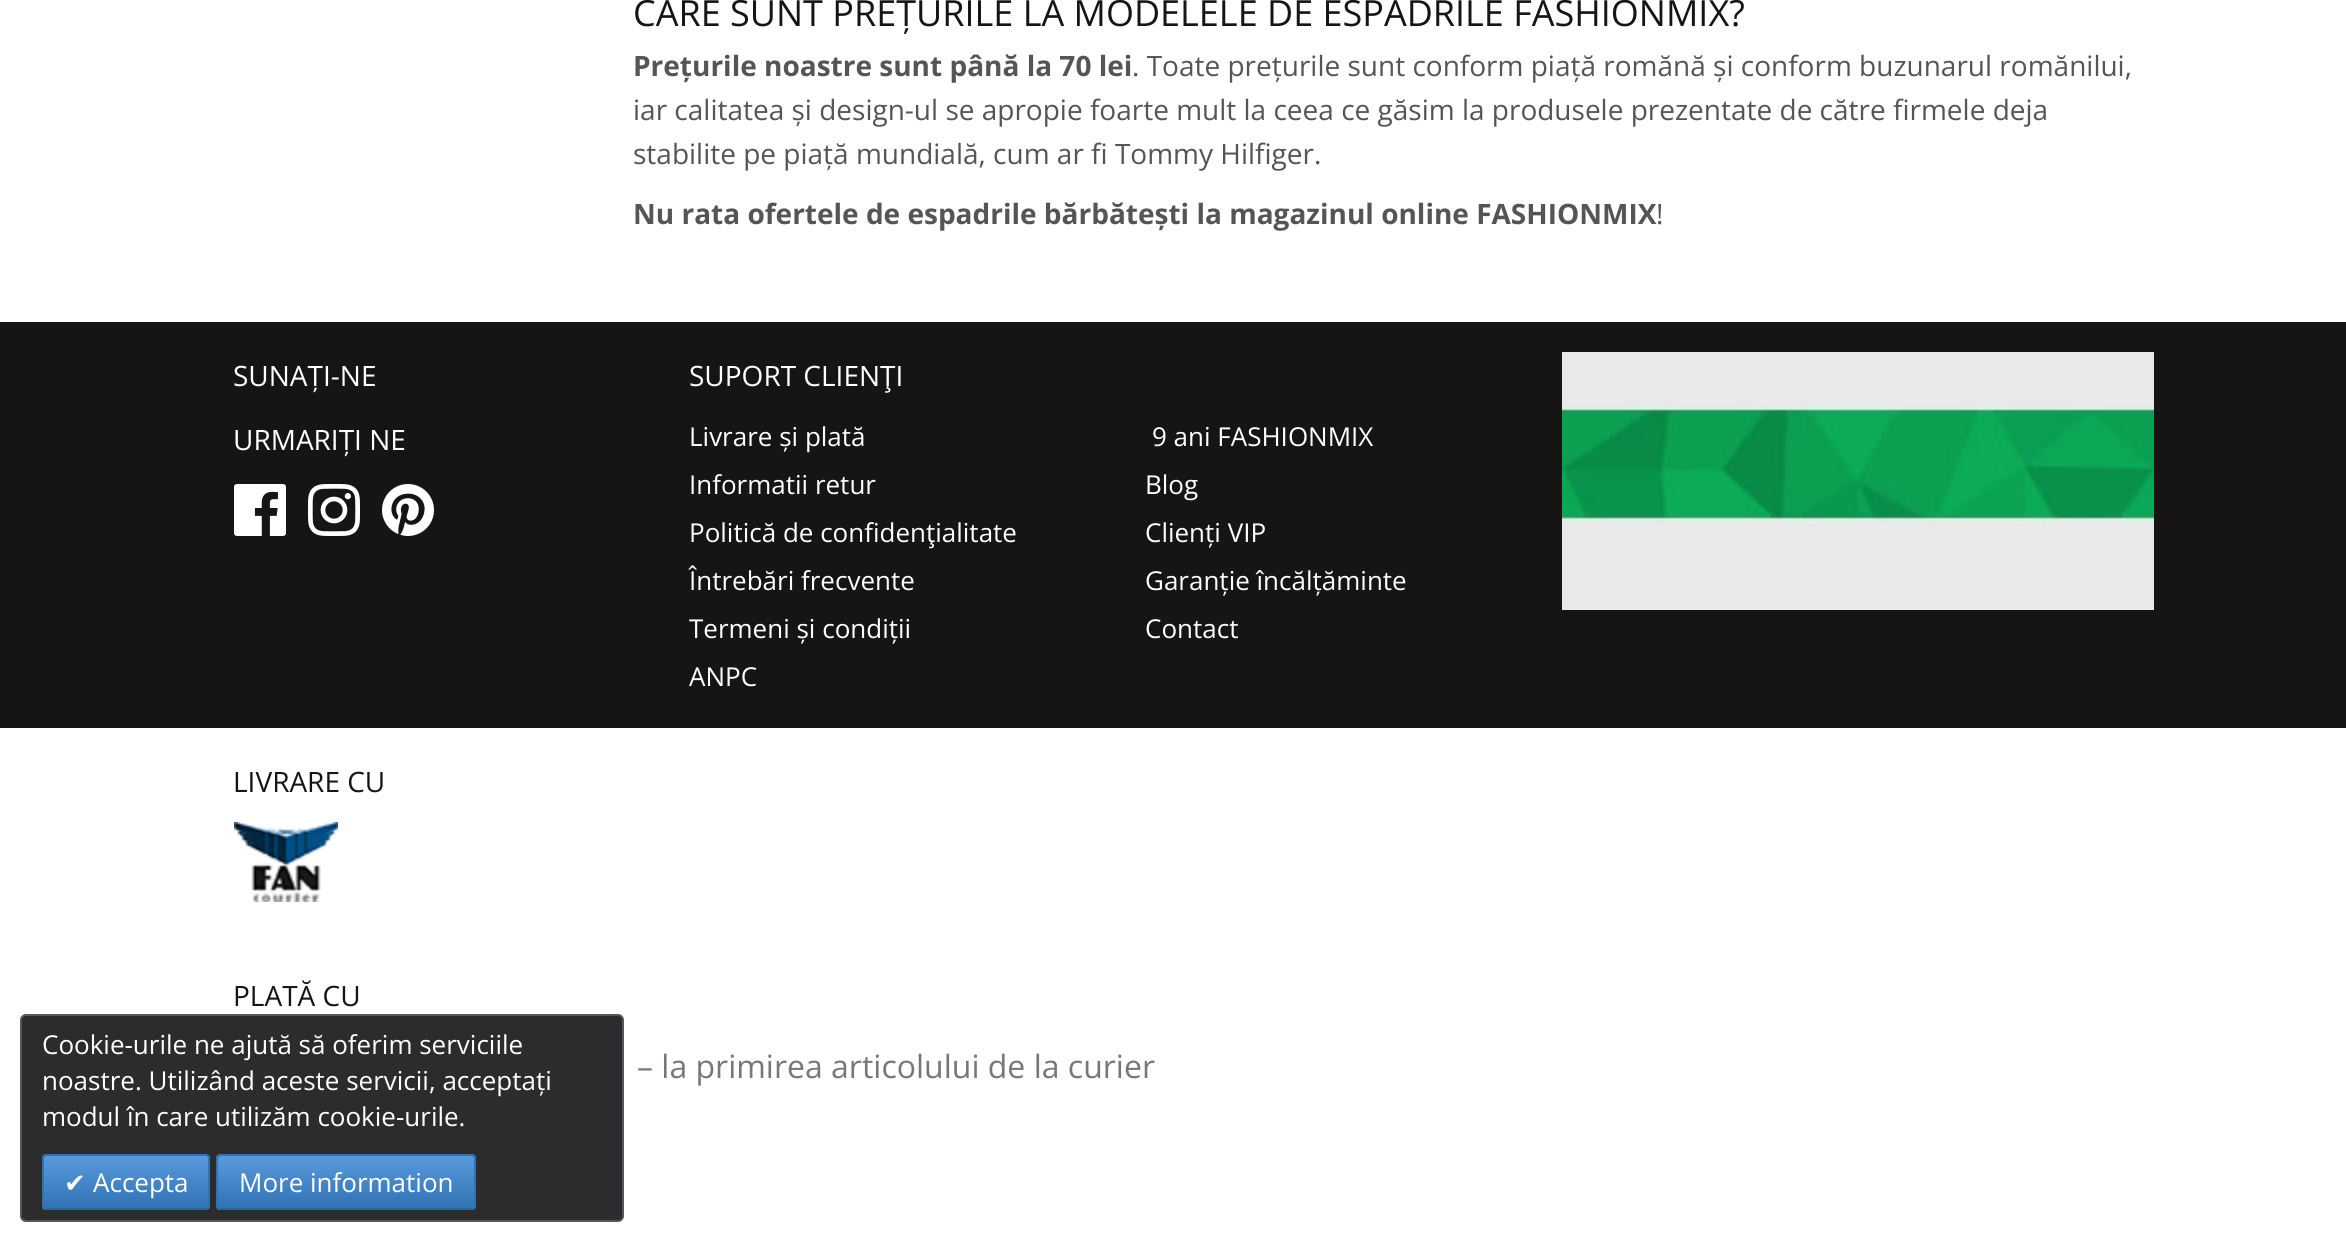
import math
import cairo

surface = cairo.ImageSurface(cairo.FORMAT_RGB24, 2346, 1241)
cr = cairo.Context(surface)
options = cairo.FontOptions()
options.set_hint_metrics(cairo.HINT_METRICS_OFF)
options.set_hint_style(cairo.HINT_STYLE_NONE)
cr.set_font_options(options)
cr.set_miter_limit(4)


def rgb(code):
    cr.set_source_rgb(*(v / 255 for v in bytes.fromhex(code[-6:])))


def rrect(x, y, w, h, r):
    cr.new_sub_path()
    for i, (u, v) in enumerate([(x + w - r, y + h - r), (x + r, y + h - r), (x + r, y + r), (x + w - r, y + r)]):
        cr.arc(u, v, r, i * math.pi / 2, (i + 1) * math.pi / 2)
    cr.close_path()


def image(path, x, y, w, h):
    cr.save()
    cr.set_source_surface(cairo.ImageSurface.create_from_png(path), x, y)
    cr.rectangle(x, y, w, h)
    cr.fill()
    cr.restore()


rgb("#ffffff")
cr.paint()
rgb("#171414")
cr.rectangle(0, 322, 2346, 406)
cr.fill()
image("img/1.png", 234, 484, 52, 52)
image("img/2.png", 308, 484, 52, 52)
image("img/3.png", 382, 484, 52, 52)
image("img/4.png", 1562, 352, 592, 258)
image("img/5.png", 234, 822, 104, 80)
rgb("#2c2c2c")
rrect(21, 1015, 602, 206, 5)
cr.fill_preserve()
rgb("#55575f")
cr.stroke()
cr.save()
rrect(42, 1154, 168, 56, 4)
cr.clip()
gradient = cairo.LinearGradient(126, 1104, 126, 1156)
gradient.add_color_stop_rgba(0, 0.349, 0.608, 0.863, 1)
gradient.add_color_stop_rgba(1, 0.188, 0.447, 0.702, 1)
cr.set_source(gradient)
cr.rectangle(42, 1154, 168, 2)
cr.fill()
gradient = cairo.LinearGradient(126, 1156, 126, 1208)
gradient.add_color_stop_rgba(0, 0.349, 0.608, 0.863, 1)
gradient.add_color_stop_rgba(1, 0.188, 0.447, 0.702, 1)
cr.set_source(gradient)
cr.rectangle(42, 1156, 168, 52)
cr.fill()
gradient = cairo.LinearGradient(126, 1208, 126, 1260)
gradient.add_color_stop_rgba(0, 0.349, 0.608, 0.863, 1)
gradient.add_color_stop_rgba(1, 0.188, 0.447, 0.702, 1)
cr.set_source(gradient)
cr.rectangle(42, 1208, 168, 2)
cr.fill()
cr.restore()
cr.new_path()
cr.move_to(208, 1208)
cr.line_to(206, 1209)
cr.line_to(46, 1209)
cr.line_to(44, 1208)
rgb("#2a65a0")
cr.stroke()
cr.new_path()
cr.move_to(44, 1208)
cr.line_to(43, 1206)
cr.line_to(43, 1158)
cr.line_to(44, 1156)
cr.line_to(46, 1155)
cr.line_to(206, 1155)
cr.line_to(208, 1156)
cr.line_to(209, 1158)
cr.line_to(209, 1206)
cr.line_to(208, 1208)
rgb("#3072b3")
cr.stroke()
cr.save()
rrect(216, 1154, 260, 56, 4)
cr.clip()
gradient = cairo.LinearGradient(346, 1104, 346, 1156)
gradient.add_color_stop_rgba(0, 0.349, 0.608, 0.863, 1)
gradient.add_color_stop_rgba(1, 0.188, 0.447, 0.702, 1)
cr.set_source(gradient)
cr.rectangle(216, 1154, 260, 2)
cr.fill()
gradient = cairo.LinearGradient(346, 1156, 346, 1208)
gradient.add_color_stop_rgba(0, 0.349, 0.608, 0.863, 1)
gradient.add_color_stop_rgba(1, 0.188, 0.447, 0.702, 1)
cr.set_source(gradient)
cr.rectangle(216, 1156, 260, 52)
cr.fill()
gradient = cairo.LinearGradient(346, 1208, 346, 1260)
gradient.add_color_stop_rgba(0, 0.349, 0.608, 0.863, 1)
gradient.add_color_stop_rgba(1, 0.188, 0.447, 0.702, 1)
cr.set_source(gradient)
cr.rectangle(216, 1208, 260, 2)
cr.fill()
cr.restore()
cr.new_path()
cr.move_to(474, 1208)
cr.line_to(473, 1209)
cr.line_to(262, 1209)
cr.line_to(220, 1209)
cr.line_to(218, 1208)
rgb("#2a65a0")
cr.stroke()
cr.new_path()
cr.move_to(218, 1208)
cr.line_to(217, 1206)
cr.line_to(217, 1158)
cr.line_to(218, 1156)
cr.line_to(220, 1155)
cr.line_to(472, 1155)
cr.line_to(474, 1156)
cr.line_to(475, 1158)
cr.line_to(475, 1206)
cr.line_to(474, 1208)
rgb("#3072b3")
cr.stroke()
cr.select_font_face("Open Sans")
cr.set_font_size(36)
rgb("#171414")
cr.move_to(633, 26)
cr.show_text("CARE SUNT PREȚURILE LA MODELELE DE ESPADRILE FASHIONMIX?")
cr.select_font_face("Open Sans", cairo.FONT_SLANT_NORMAL, cairo.FONT_WEIGHT_BOLD)
cr.set_font_size(28)
rgb("#555555")
cr.move_to(633, 76)
cr.show_text("Prețurile noastre sunt până la 70 lei")
cr.select_font_face("Open Sans")
for x, y, s in [
    (1132, 76, ". Toate prețurile sunt conform piață romănă și conform buzunarul romănilui,"),
    (633, 120, "iar calitatea și design-ul se apropie foarte mult la ceea ce găsim la produsele prezentate de către firmele deja"),
    (633, 164, "stabilite pe piață mundială, cum ar fi Tommy Hilfiger."),
]:
    cr.move_to(x, y)
    cr.show_text(s)
cr.select_font_face("Open Sans", cairo.FONT_SLANT_NORMAL, cairo.FONT_WEIGHT_BOLD)
cr.move_to(633, 224)
cr.show_text("Nu rata ofertele de espadrile bărbătești la magazinul online FASHIONMIX")
cr.select_font_face("Open Sans")
cr.move_to(1656, 224)
cr.show_text("!")
rgb("#ffffff")
for x, y, s in [
    (233, 386, "SUNAȚI-NE"),
    (233, 450, "URMARIȚI NE"),
    (689, 386, "SUPORT CLIENŢI"),
]:
    cr.move_to(x, y)
    cr.show_text(s)
cr.set_font_size(26)
for x, y, s in [
    (689, 446, "Livrare și plată"),
    (689, 494, "Informatii retur"),
    (689, 542, "Politică de confidenţialitate"),
    (689, 590, "Întrebări frecvente"),
    (689, 638, "Termeni și condiții"),
    (689, 686, "ANPC"),
    (1152, 446, "9 ani FASHIONMIX"),
    (1145, 494, "Blog"),
    (1145, 542, "Clienți VIP"),
    (1145, 590, "Garanție încălțăminte"),
    (1145, 638, "Contact"),
]:
    cr.move_to(x, y)
    cr.show_text(s)
cr.set_font_size(28)
rgb("#171414")
cr.move_to(233, 792)
cr.show_text("LIVRARE CU")
cr.move_to(233, 1006)
cr.show_text("PLATĂ CU")
cr.set_font_size(32)
rgb("#777777")
cr.move_to(637, 1078)
cr.show_text("– la primirea articolului de la curier")
cr.set_font_size(26)
rgb("#ffffff")
for x, y, s in [
    (42, 1054, "Cookie-urile ne ajută să oferim serviciile"),
    (42, 1090, "noastre. Utilizând aceste servicii, acceptați"),
    (42, 1126, "modul în care utilizăm cookie-urile."),
]:
    cr.move_to(x, y)
    cr.show_text(s)
cr.select_font_face("DejaVu Sans")
cr.move_to(64, 1192)
cr.show_text("✔")
cr.select_font_face("Open Sans")
cr.move_to(93, 1192)
cr.show_text("Accepta")
cr.move_to(239, 1192)
cr.show_text("More information")
surface.write_to_png("page.png")
